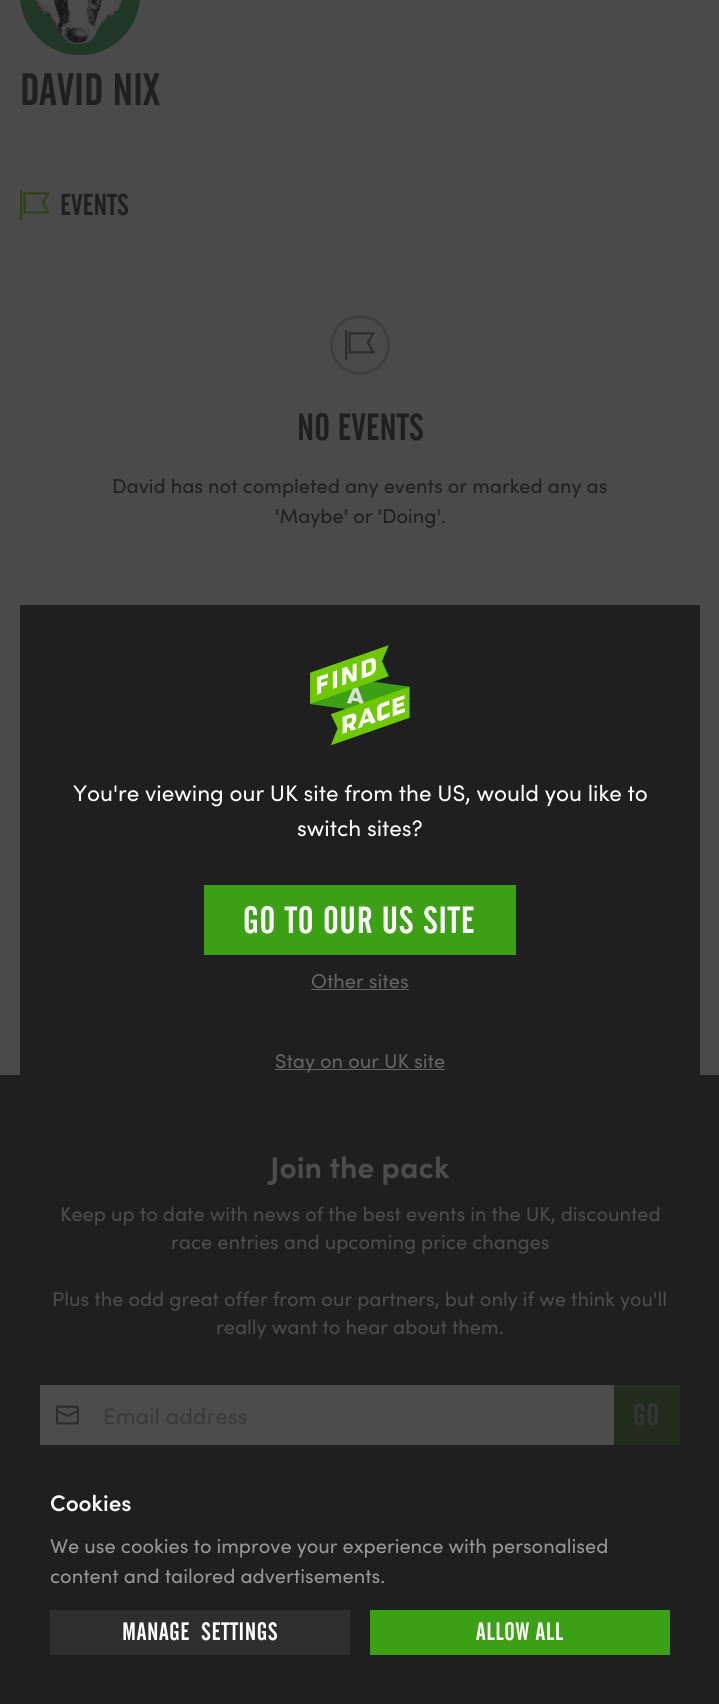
import math
import cairo

surface = cairo.ImageSurface(cairo.FORMAT_RGB24, 719, 1704)
cr = cairo.Context(surface)
options = cairo.FontOptions()
options.set_hint_metrics(cairo.HINT_METRICS_OFF)
options.set_hint_style(cairo.HINT_STYLE_NONE)
cr.set_font_options(options)
cr.set_miter_limit(4)


def rgb(code):
    cr.set_source_rgb(*(v / 255 for v in bytes.fromhex(code[-6:])))


def tracked(x, y, s, letter, word):
    cr.move_to(x, y)
    for ch in s:
        cr.show_text(ch)
        cr.rel_move_to(letter + word * (ch == ' '), 0)


def image(path, x, y, w, h):
    cr.save()
    cr.set_source_surface(cairo.ImageSurface.create_from_png(path), x, y)
    cr.rectangle(x, y, w, h)
    cr.fill()
    cr.restore()


rgb("#1e1f1e")
cr.paint()
rgb("#494a49")
cr.rectangle(0, 0, 719, 1075)
cr.fill()
image("img/1.png", 20, 0, 120, 55)
image("img/2.png", 20, 190, 30, 30)
cr.arc(360, 345, 28.5, 0, 2 * math.pi)
rgb("#3f403e")
cr.set_line_width(3)
cr.stroke()
image("img/3.png", 345, 330, 30, 30)
rgb("#1e1f1e")
cr.rectangle(20, 605, 680, 470)
cr.fill()
image("img/4.png", 310, 645, 100, 101)
for x, y, w, h, color in [
    (204, 885, 312, 70, "#3ca014"),
    (311, 989, 98, 1, "#646563"),
    (275, 1069, 170, 1, "#646563"),
    (40, 1385, 574, 60, "#4b4c4b"),
]:
    rgb(color)
    cr.rectangle(x, y, w, h)
    cr.fill()
image("img/5.png", 56, 1405, 23, 20)
for x, y, w, h, color in [
    (614, 1385, 66, 60, "#212c1d"),
    (50, 1610, 300, 45, "#2d2e2d"),
    (370, 1610, 300, 45, "#3ca014"),
]:
    rgb(color)
    cr.rectangle(x, y, w, h)
    cr.fill()
cr.select_font_face("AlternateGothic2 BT")
cr.set_font_size(45)
rgb("#1e1f1e")
cr.move_to(20, 105)
cr.show_text("DAVID NIX")
cr.set_font_size(30)
cr.move_to(60, 215)
cr.show_text("EVENTS")
cr.set_font_size(37.5)
cr.move_to(297, 440)
cr.show_text("NO EVENTS")
cr.select_font_face("Sofia")
cr.set_font_size(20)
cr.move_to(112, 493)
cr.show_text("David has not completed any events or marked any as")
cr.move_to(275, 523)
cr.show_text("'Maybe' or 'Doing'.")
cr.set_font_size(22.5)
rgb("#ffffff")
cr.move_to(73, 801)
cr.show_text("You're viewing our UK site from the US, would you like to")
cr.move_to(297, 836)
cr.show_text("switch sites?")
cr.select_font_face("AlternateGothic2 BT")
cr.set_font_size(37.5)
tracked(243, 933, "GO TO OUR US SITE", 0.9, 0)
cr.select_font_face("Sofia")
cr.set_font_size(20)
rgb("#646563")
cr.move_to(311, 988)
cr.show_text("Other sites")
cr.move_to(275, 1068)
cr.show_text("Stay on our UK site")
cr.select_font_face("Sofia", cairo.FONT_SLANT_NORMAL, cairo.FONT_WEIGHT_BOLD)
cr.set_font_size(30)
rgb("#4b4c4b")
cr.move_to(270, 1178)
cr.show_text("Join the pack")
cr.select_font_face("Sofia")
cr.set_font_size(20)
for x, y, s in [
    (60, 1221, "Keep up to date with news of the best events in the UK, discounted"),
    (171, 1249, "race entries and upcoming price changes"),
    (52, 1306, "Plus the odd great offer from our partners, but only if we think you'll"),
    (216, 1334, "really want to hear about them."),
]:
    cr.move_to(x, y)
    cr.show_text(s)
cr.set_font_size(22.5)
rgb("#393b39")
cr.move_to(103, 1424)
cr.show_text("Email address")
cr.select_font_face("AlternateGothic2 BT")
cr.set_font_size(30)
rgb("#353535")
tracked(633, 1425, "GO", 1, 0)
cr.select_font_face("Sofia SemiBold")
cr.set_font_size(22.5)
rgb("#ffffff")
cr.move_to(50, 1511)
cr.show_text("Cookies")
cr.select_font_face("Sofia")
cr.set_font_size(20)
rgb("#969895")
cr.move_to(50, 1553)
cr.show_text("We use cookies to improve your experience with personalised")
cr.move_to(50, 1583)
cr.show_text("content and tailored advertisements.")
cr.select_font_face("AlternateGothic2 BT")
cr.set_font_size(25)
rgb("#ffffff")
for x, y, s in [
    (122, 1640, "MANAGE"),
    (201, 1640, "SETTINGS"),
    (476, 1640, "ALLOW ALL"),
]:
    tracked(x, y, s, 0.6, 0)
surface.write_to_png("page.png")
